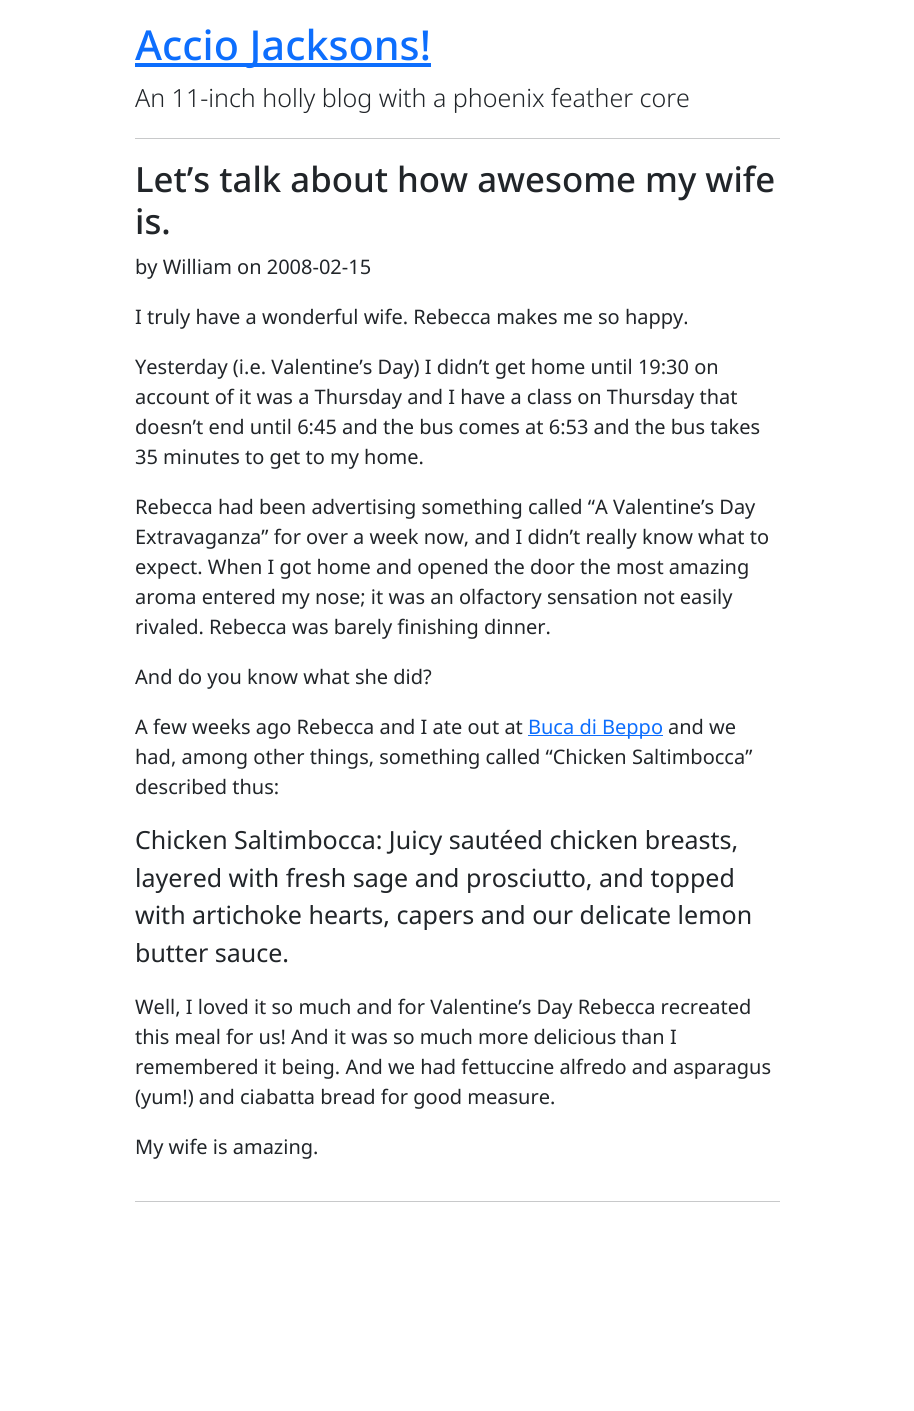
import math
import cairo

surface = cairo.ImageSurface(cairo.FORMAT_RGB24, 914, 1411)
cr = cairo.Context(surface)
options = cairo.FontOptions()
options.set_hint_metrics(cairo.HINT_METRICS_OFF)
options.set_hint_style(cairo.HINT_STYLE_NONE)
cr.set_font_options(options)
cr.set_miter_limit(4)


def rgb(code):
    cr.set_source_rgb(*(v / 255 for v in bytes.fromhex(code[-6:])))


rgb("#ffffff")
cr.paint()
for x, y, w, h, color in [
    (135, 63, 296, 4, "#0d6efd"),
    (135, 138, 645, 1, "#c8c9ca"),
    (528, 735, 135, 1, "#0d6efd"),
    (135, 1201, 645, 1, "#c8c9ca"),
]:
    rgb(color)
    cr.rectangle(x, y, w, h)
    cr.fill()
cr.select_font_face("Noto Sans Medium")
cr.set_font_size(41.25)
rgb("#0d6efd")
cr.move_to(135, 60)
cr.show_text("Accio Jacksons!")
cr.select_font_face("Noto Sans Light")
cr.set_font_size(25)
rgb("#212529")
cr.move_to(135, 107)
cr.show_text("An 11-inch holly blog with a phoenix feather core")
cr.select_font_face("Noto Sans Medium")
cr.set_font_size(34.75)
cr.move_to(135, 192)
cr.show_text("Letʼs talk about how awesome my wife")
cr.move_to(135, 234)
cr.show_text("is.")
cr.select_font_face("Noto Sans")
cr.set_font_size(20)
for x, y, s in [
    (135, 274, "by William on 2008-02-15"),
    (135, 324, "I truly have a wonderful wife. Rebecca makes me so happy."),
    (135, 374, "Yesterday (i.e. Valentineʼs Day) I didnʼt get home until 19:30 on"),
    (135, 404, "account of it was a Thursday and I have a class on Thursday that"),
    (135, 434, "doesnʼt end until 6:45 and the bus comes at 6:53 and the bus takes"),
    (135, 464, "35 minutes to get to my home."),
    (135, 514, "Rebecca had been advertising something called “A Valentineʼs Day"),
    (135, 544, "Extravaganza” for over a week now, and I didnʼt really know what to"),
    (135, 574, "expect. When I got home and opened the door the most amazing"),
    (135, 604, "aroma entered my nose; it was an olfactory sensation not easily"),
    (135, 634, "rivaled. Rebecca was barely finishing dinner."),
    (135, 684, "And do you know what she did?"),
    (135, 734, "A few weeks ago Rebecca and I ate out at"),
]:
    cr.move_to(x, y)
    cr.show_text(s)
rgb("#0d6efd")
cr.move_to(528, 734)
cr.show_text("Buca di Beppo")
rgb("#212529")
for x, y, s in [
    (668, 734, "and we"),
    (135, 764, "had, among other things, something called “Chicken Saltimbocca”"),
    (135, 794, "described thus:"),
]:
    cr.move_to(x, y)
    cr.show_text(s)
cr.set_font_size(25)
for x, y, s in [
    (135, 849, "Chicken Saltimbocca: Juicy sautéed chicken breasts,"),
    (135, 887, "layered with fresh sage and prosciutto, and topped"),
    (135, 924, "with artichoke hearts, capers and our delicate lemon"),
    (135, 962, "butter sauce."),
]:
    cr.move_to(x, y)
    cr.show_text(s)
cr.set_font_size(20)
for x, y, s in [
    (135, 1014, "Well, I loved it so much and for Valentineʼs Day Rebecca recreated"),
    (135, 1044, "this meal for us! And it was so much more delicious than I"),
    (135, 1074, "remembered it being. And we had fettuccine alfredo and asparagus"),
    (135, 1104, "(yum!) and ciabatta bread for good measure."),
    (135, 1154, "My wife is amazing."),
]:
    cr.move_to(x, y)
    cr.show_text(s)
surface.write_to_png("page.png")
